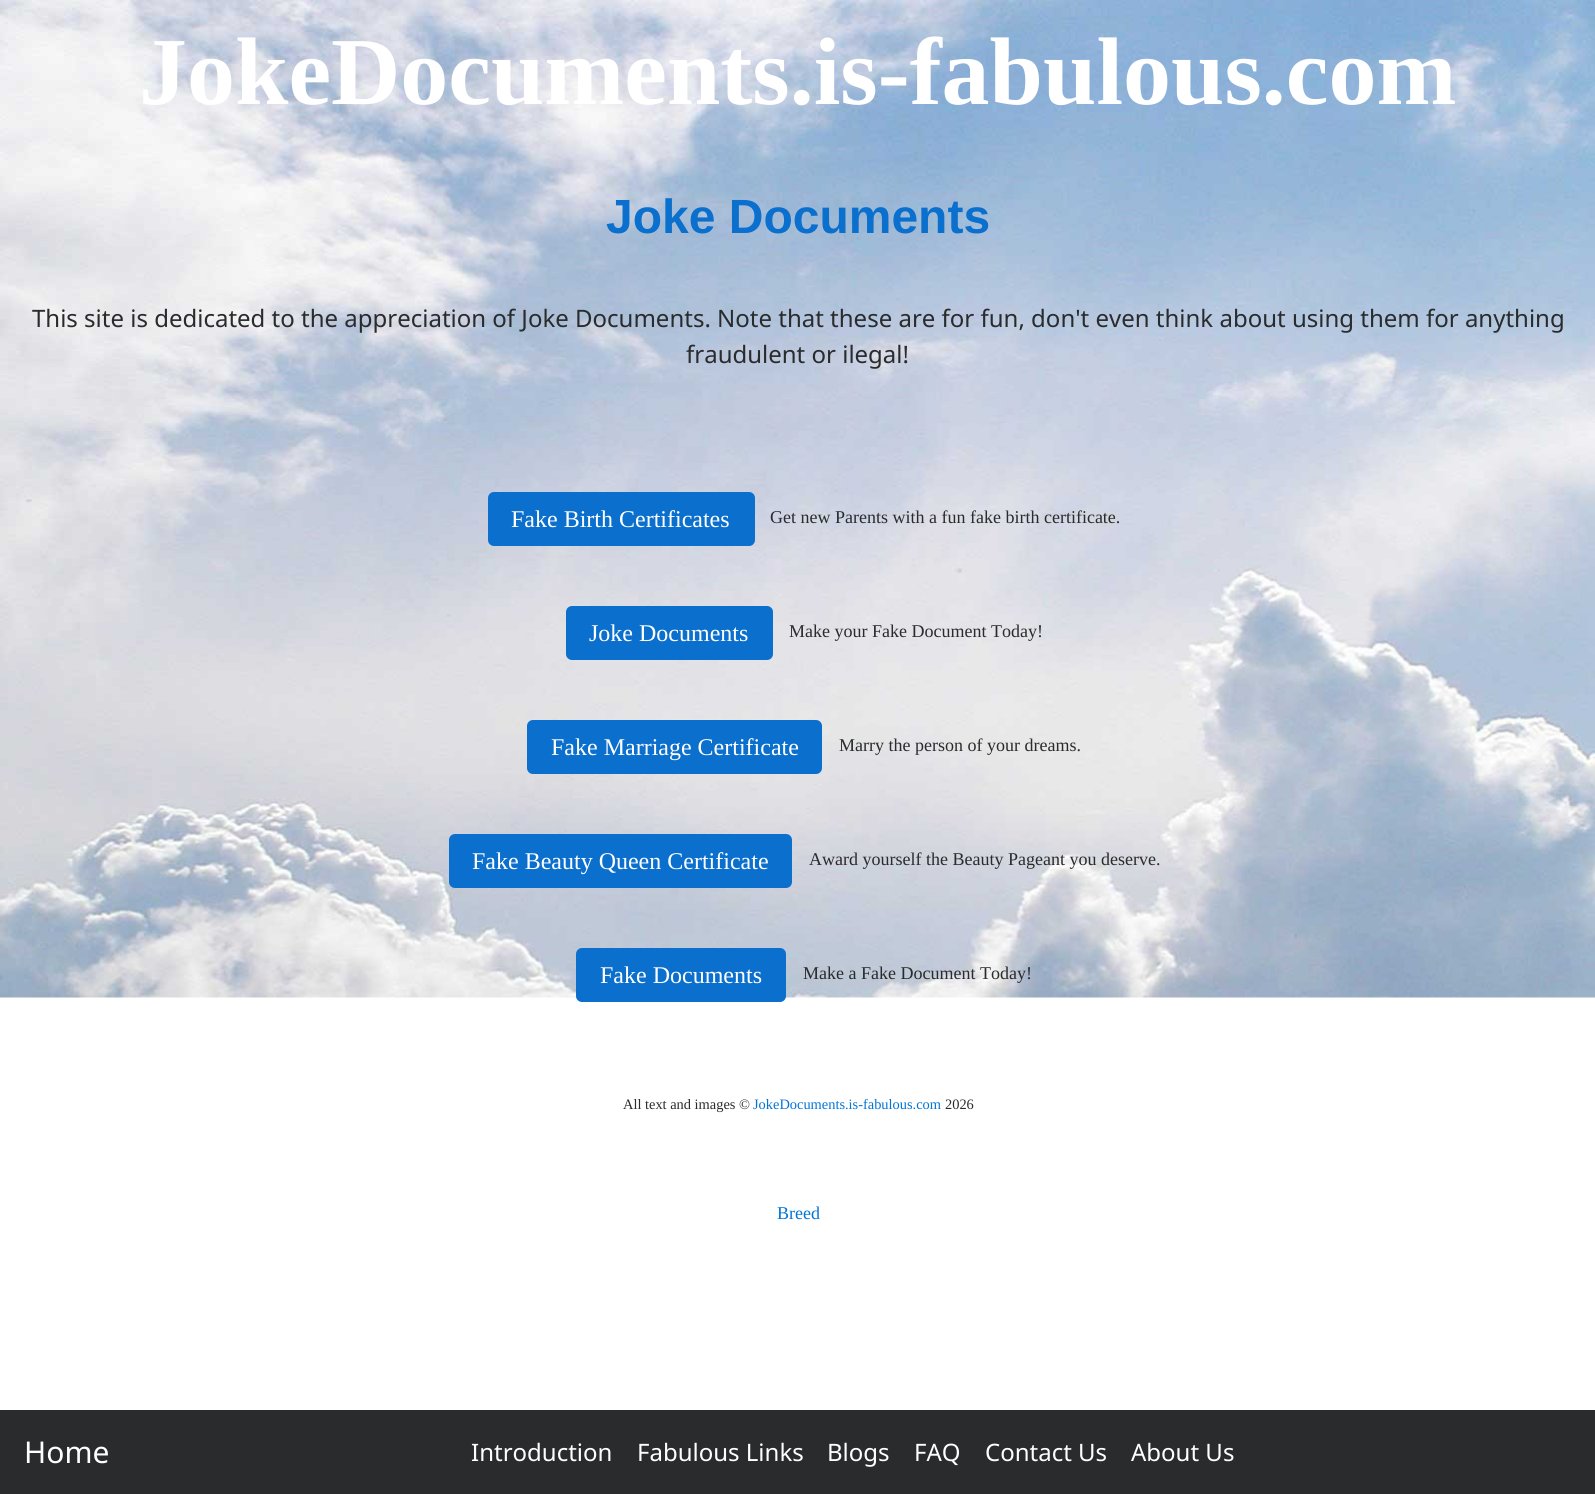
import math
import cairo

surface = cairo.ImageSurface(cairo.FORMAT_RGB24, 1595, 1494)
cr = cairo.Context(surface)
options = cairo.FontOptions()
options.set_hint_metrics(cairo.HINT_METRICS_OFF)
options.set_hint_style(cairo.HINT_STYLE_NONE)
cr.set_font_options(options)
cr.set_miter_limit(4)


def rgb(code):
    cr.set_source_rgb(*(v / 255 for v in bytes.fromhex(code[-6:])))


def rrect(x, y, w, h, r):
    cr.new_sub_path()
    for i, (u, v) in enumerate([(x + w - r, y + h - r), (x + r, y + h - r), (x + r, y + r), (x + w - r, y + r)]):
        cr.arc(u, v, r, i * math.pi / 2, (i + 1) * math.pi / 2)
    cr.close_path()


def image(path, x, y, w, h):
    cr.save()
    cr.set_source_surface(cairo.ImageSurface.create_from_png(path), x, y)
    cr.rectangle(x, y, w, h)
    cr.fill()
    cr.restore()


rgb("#ffffff")
cr.paint()
image("img/1.png", 0, 0, 1595, 998)
rgb("#0a6fcd")
rrect(488, 492, 267, 54, 6)
cr.fill()
rrect(566, 606, 207, 54, 6)
cr.fill()
rrect(527, 720, 295, 54, 6)
cr.fill()
rrect(449, 834, 343, 54, 6)
cr.fill()
rrect(576, 948, 210, 54, 6)
cr.fill()
rgb("#292b2c")
cr.rectangle(0, 1410, 1595, 84)
cr.fill()
cr.select_font_face("Liberation Serif", cairo.FONT_SLANT_NORMAL, cairo.FONT_WEIGHT_BOLD)
cr.set_font_size(96)
rgb("#ffffff")
cr.move_to(139, 104)
cr.show_text("JokeDocuments.is-fabulous.com")
cr.select_font_face("Liberation Sans", cairo.FONT_SLANT_NORMAL, cairo.FONT_WEIGHT_BOLD)
cr.set_font_size(48)
rgb("#0a6fcd")
cr.move_to(606, 233)
cr.show_text("Joke Documents")
cr.select_font_face("Noto Sans")
cr.set_font_size(24)
rgb("#292b2c")
cr.move_to(32, 327)
cr.show_text("This site is dedicated to the appreciation of Joke Documents. Note that these are for fun, don't even think about using them for anything")
cr.move_to(686, 363)
cr.show_text("fraudulent or ilegal!")
cr.select_font_face("Liberation Serif")
rgb("#ffffff")
cr.move_to(511, 527)
cr.show_text("Fake Birth Certificates")
cr.set_font_size(18)
rgb("#292b2c")
cr.move_to(770, 523)
cr.show_text("Get new Parents with a fun fake birth certificate.")
cr.set_font_size(24)
rgb("#ffffff")
cr.move_to(589, 641)
cr.show_text("Joke Documents")
cr.set_font_size(18)
rgb("#292b2c")
cr.move_to(789, 637)
cr.show_text("Make your Fake Document Today!")
cr.set_font_size(24)
rgb("#ffffff")
cr.move_to(551, 755)
cr.show_text("Fake Marriage Certificate")
cr.set_font_size(18)
rgb("#292b2c")
cr.move_to(839, 751)
cr.show_text("Marry the person of your dreams.")
cr.set_font_size(24)
rgb("#ffffff")
cr.move_to(472, 869)
cr.show_text("Fake Beauty Queen Certificate")
cr.set_font_size(18)
rgb("#292b2c")
cr.move_to(809, 865)
cr.show_text("Award yourself the Beauty Pageant you deserve.")
cr.set_font_size(24)
rgb("#ffffff")
cr.move_to(600, 983)
cr.show_text("Fake Documents")
cr.set_font_size(18)
rgb("#292b2c")
cr.move_to(803, 979)
cr.show_text("Make a Fake Document Today!")
cr.set_font_size(14.4)
cr.move_to(623, 1109)
cr.show_text("All text and images ©")
rgb("#0275d8")
cr.move_to(753, 1109)
cr.show_text("JokeDocuments.is-fabulous.com")
rgb("#292b2c")
cr.move_to(945, 1109)
cr.show_text("2026")
cr.set_font_size(18)
rgb("#0275d8")
cr.move_to(777, 1219)
cr.show_text("Breed")
cr.select_font_face("Noto Sans")
cr.set_font_size(30)
rgb("#ffffff")
cr.move_to(24, 1463)
cr.show_text("Home")
cr.set_font_size(24)
for x, y, s in [
    (471, 1461, "Introduction"),
    (637, 1461, "Fabulous Links"),
    (827, 1461, "Blogs"),
    (914, 1461, "FAQ"),
    (985, 1461, "Contact Us"),
    (1131, 1461, "About Us"),
]:
    cr.move_to(x, y)
    cr.show_text(s)
surface.write_to_png("page.png")
